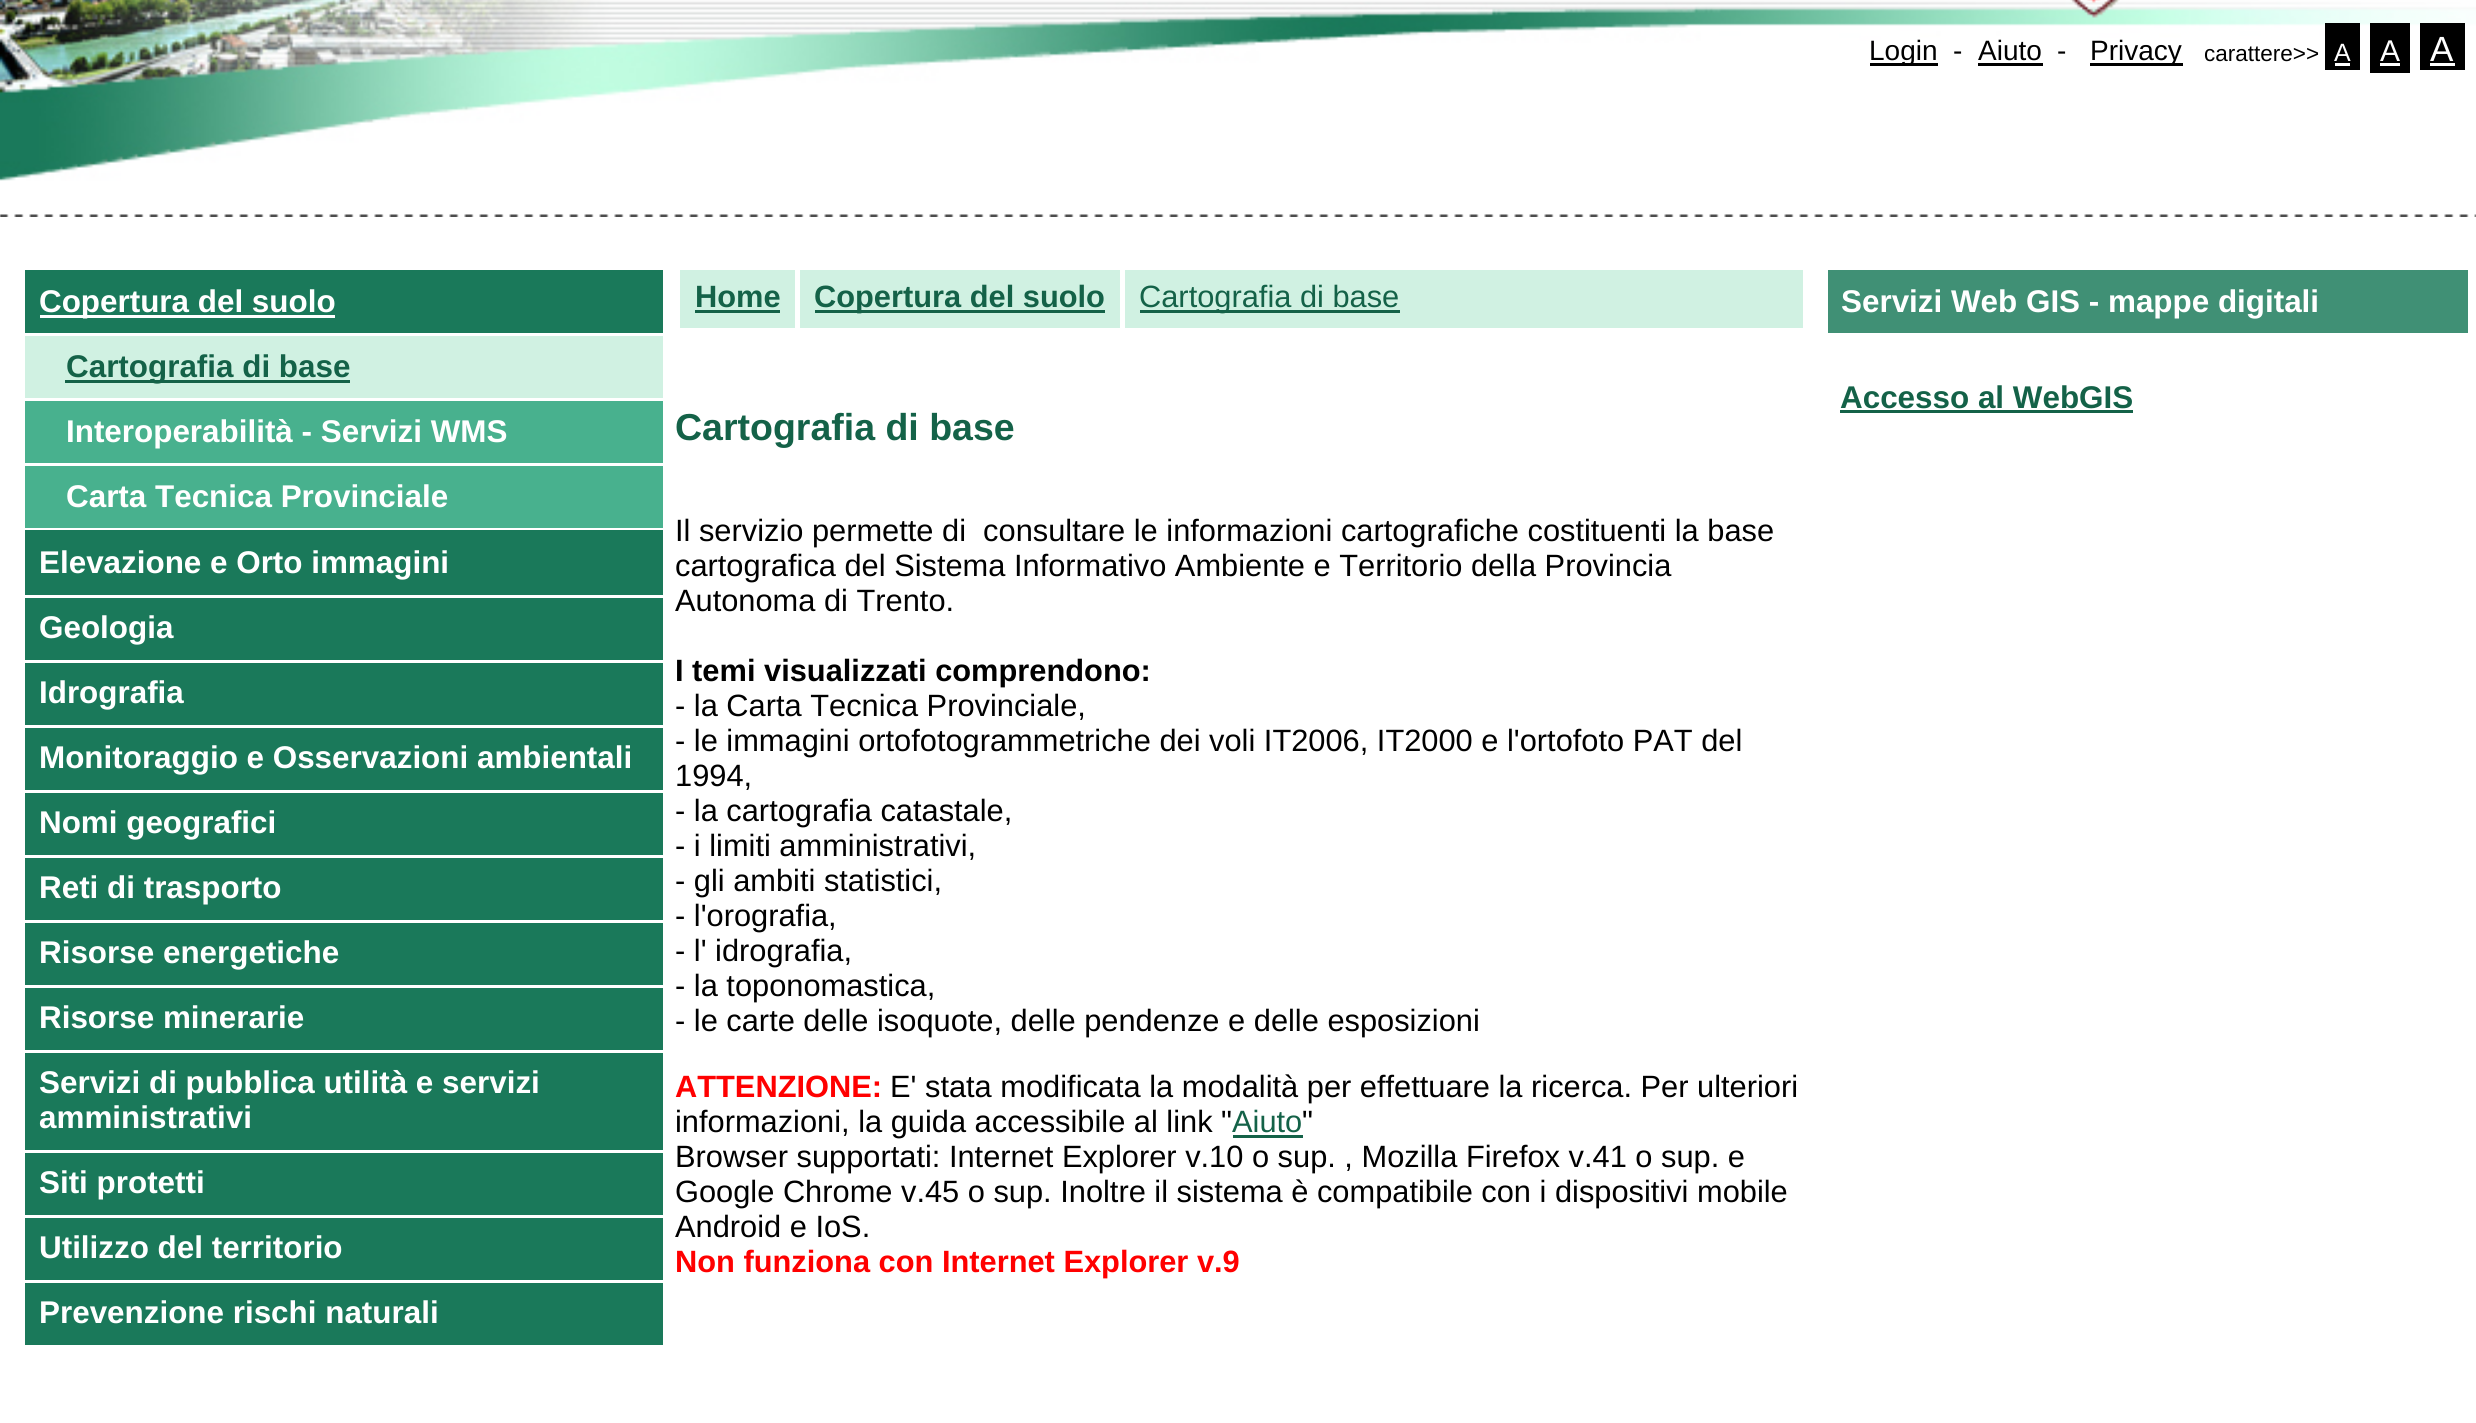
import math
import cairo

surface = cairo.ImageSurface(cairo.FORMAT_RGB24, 2476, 1423)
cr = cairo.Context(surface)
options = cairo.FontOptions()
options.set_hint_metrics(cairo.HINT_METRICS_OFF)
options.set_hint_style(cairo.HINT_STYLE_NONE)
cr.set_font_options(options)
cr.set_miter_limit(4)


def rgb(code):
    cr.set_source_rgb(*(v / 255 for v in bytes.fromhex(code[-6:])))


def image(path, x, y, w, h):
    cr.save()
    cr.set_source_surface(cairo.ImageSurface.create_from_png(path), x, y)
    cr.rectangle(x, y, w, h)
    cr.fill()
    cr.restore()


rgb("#ffffff")
cr.paint()
image("img/1.png", 0, 0, 2476, 181)
image("img/2.png", 2070, 0, 50, 18)
for x, y, w, h, color in [
    (1870, 63, 68, 3, "#000000"),
    (1978, 63, 65, 3, "#000000"),
    (2090, 63, 93, 3, "#000000"),
    (2325, 23, 35, 47, "#000000"),
    (2335, 63, 15, 3, "#ffffff"),
    (2370, 23, 40, 50, "#000000"),
    (2380, 63, 20, 3, "#ffffff"),
    (2420, 23, 45, 47, "#000000"),
    (2430, 63, 25, 3, "#ffffff"),
]:
    rgb(color)
    cr.rectangle(x, y, w, h)
    cr.fill()
image("img/3.png", 0, 214, 2476, 3)
for x, y, w, h, color in [
    (25, 270, 638, 63, "#1a795a"),
    (40, 315, 295, 3, "#ffffff"),
    (25, 336, 638, 62, "#d0f1e2"),
    (65, 380, 285, 3, "#146248"),
    (25, 401, 638, 62, "#48b18e"),
    (25, 466, 638, 62, "#48b18e"),
    (25, 530, 638, 65, "#1a795a"),
    (25, 598, 638, 62, "#1a795a"),
    (25, 663, 638, 62, "#1a795a"),
    (25, 728, 638, 62, "#1a795a"),
    (25, 793, 638, 62, "#1a795a"),
    (25, 858, 638, 62, "#1a795a"),
    (25, 923, 638, 62, "#1a795a"),
    (25, 988, 638, 62, "#1a795a"),
    (25, 1053, 638, 97, "#1a795a"),
    (25, 1153, 638, 62, "#1a795a"),
    (25, 1218, 638, 62, "#1a795a"),
    (25, 1283, 638, 62, "#1a795a"),
    (680, 270, 1123, 58, "#d0f1e2"),
    (695, 310, 85, 3, "#146248"),
    (795, 270, 5, 58, "#ffffff"),
    (815, 310, 290, 3, "#146248"),
    (1120, 270, 5, 58, "#ffffff"),
    (1140, 310, 260, 3, "#146248"),
    (1233, 1135, 70, 3, "#146248"),
    (1828, 270, 640, 63, "#409075"),
    (1840, 410, 293, 3, "#146248"),
]:
    rgb(color)
    cr.rectangle(x, y, w, h)
    cr.fill()
cr.select_font_face("Liberation Sans")
cr.set_font_size(28)
rgb("#000000")
for x, y, s in [
    (1869, 60, "Login"),
    (1953, 60, "-"),
    (1978, 60, "Aiuto"),
    (2057, 60, "-"),
    (2090, 60, "Privacy"),
]:
    cr.move_to(x, y)
    cr.show_text(s)
cr.set_font_size(22.5)
cr.move_to(2204, 61)
cr.show_text("carattere>>")
cr.set_font_size(25)
rgb("#ffffff")
cr.move_to(2334, 61)
cr.show_text("A")
cr.set_font_size(30)
cr.move_to(2380, 61)
cr.show_text("A")
cr.set_font_size(35)
cr.move_to(2430, 61)
cr.show_text("A")
cr.select_font_face("Liberation Sans", cairo.FONT_SLANT_NORMAL, cairo.FONT_WEIGHT_BOLD)
cr.set_font_size(31.4)
cr.move_to(39, 312)
cr.show_text("Copertura del suolo")
rgb("#146248")
cr.move_to(66, 377)
cr.show_text("Cartografia di base")
rgb("#ffffff")
for x, y, s in [
    (66, 442, "Interoperabilità - Servizi WMS"),
    (66, 507, "Carta Tecnica Provinciale"),
    (39, 573, "Elevazione e Orto immagini"),
    (39, 638, "Geologia"),
    (39, 703, "Idrografia"),
    (39, 768, "Monitoraggio e Osservazioni ambientali"),
    (39, 833, "Nomi geografici"),
    (39, 898, "Reti di trasporto"),
    (39, 963, "Risorse energetiche"),
    (39, 1028, "Risorse minerarie"),
    (39, 1093, "Servizi di pubblica utilità e servizi"),
    (39, 1128, "amministrativi"),
    (39, 1193, "Siti protetti"),
    (39, 1258, "Utilizzo del territorio"),
    (39, 1323, "Prevenzione rischi naturali"),
]:
    cr.move_to(x, y)
    cr.show_text(s)
cr.set_font_size(30.8)
rgb("#146248")
cr.move_to(695, 307)
cr.show_text("Home")
cr.move_to(814, 307)
cr.show_text("Copertura del suolo")
cr.select_font_face("Liberation Sans")
cr.move_to(1139, 307)
cr.show_text("Cartografia di base")
cr.select_font_face("Liberation Sans", cairo.FONT_SLANT_NORMAL, cairo.FONT_WEIGHT_BOLD)
cr.set_font_size(37.5)
cr.move_to(675, 440)
cr.show_text("Cartografia di base")
cr.select_font_face("Liberation Sans")
cr.set_font_size(30.8)
rgb("#000000")
for x, y, s in [
    (675, 541, "Il servizio permette di  consultare le informazioni cartografiche costituenti la base"),
    (675, 576, "cartografica del Sistema Informativo Ambiente e Territorio della Provincia"),
    (675, 611, "Autonoma di Trento."),
]:
    cr.move_to(x, y)
    cr.show_text(s)
cr.select_font_face("Liberation Sans", cairo.FONT_SLANT_NORMAL, cairo.FONT_WEIGHT_BOLD)
cr.move_to(675, 681)
cr.show_text("I temi visualizzati comprendono:")
cr.select_font_face("Liberation Sans")
for x, y, s in [
    (675, 716, "- la Carta Tecnica Provinciale,"),
    (675, 751, "- le immagini ortofotogrammetriche dei voli IT2006, IT2000 e l'ortofoto PAT del"),
    (675, 786, "1994,"),
    (675, 821, "- la cartografia catastale,"),
    (675, 856, "- i limiti amministrativi,"),
    (675, 891, "- gli ambiti statistici,"),
    (675, 926, "- l'orografia,"),
    (675, 961, "- l' idrografia,"),
    (675, 996, "- la toponomastica,"),
    (675, 1031, "- le carte delle isoquote, delle pendenze e delle esposizioni"),
]:
    cr.move_to(x, y)
    cr.show_text(s)
cr.select_font_face("Liberation Sans", cairo.FONT_SLANT_NORMAL, cairo.FONT_WEIGHT_BOLD)
rgb("#ff0000")
cr.move_to(675, 1097)
cr.show_text("ATTENZIONE:")
cr.select_font_face("Liberation Sans")
rgb("#000000")
cr.move_to(890, 1097)
cr.show_text("E' stata modificata la modalità per effettuare la ricerca. Per ulteriori")
cr.move_to(675, 1132)
cr.show_text("informazioni, la guida accessibile al link \"")
rgb("#146248")
cr.move_to(1232, 1132)
cr.show_text("Aiuto")
rgb("#000000")
for x, y, s in [
    (1302, 1132, "\""),
    (675, 1167, "Browser supportati: Internet Explorer v.10 o sup. , Mozilla Firefox v.41 o sup. e"),
    (675, 1202, "Google Chrome v.45 o sup. Inoltre il sistema è compatibile con i dispositivi mobile"),
    (675, 1237, "Android e IoS."),
]:
    cr.move_to(x, y)
    cr.show_text(s)
cr.select_font_face("Liberation Sans", cairo.FONT_SLANT_NORMAL, cairo.FONT_WEIGHT_BOLD)
rgb("#ff0000")
cr.move_to(675, 1272)
cr.show_text("Non funziona con Internet Explorer v.9")
cr.set_font_size(31.4)
rgb("#ffffff")
cr.move_to(1841, 312)
cr.show_text("Servizi Web GIS - mappe digitali")
rgb("#146248")
cr.move_to(1840, 408)
cr.show_text("Accesso al WebGIS")
surface.write_to_png("page.png")
